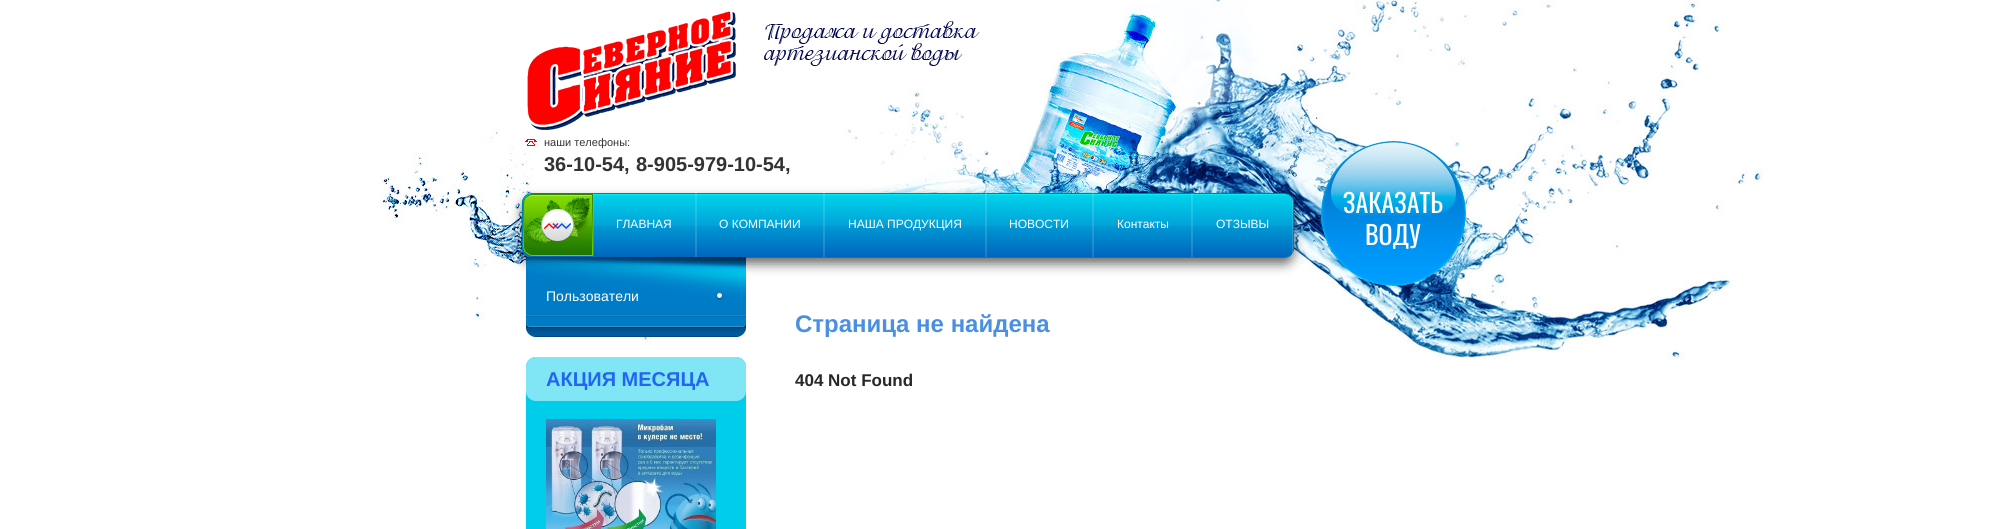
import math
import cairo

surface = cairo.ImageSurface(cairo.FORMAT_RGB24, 1991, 529)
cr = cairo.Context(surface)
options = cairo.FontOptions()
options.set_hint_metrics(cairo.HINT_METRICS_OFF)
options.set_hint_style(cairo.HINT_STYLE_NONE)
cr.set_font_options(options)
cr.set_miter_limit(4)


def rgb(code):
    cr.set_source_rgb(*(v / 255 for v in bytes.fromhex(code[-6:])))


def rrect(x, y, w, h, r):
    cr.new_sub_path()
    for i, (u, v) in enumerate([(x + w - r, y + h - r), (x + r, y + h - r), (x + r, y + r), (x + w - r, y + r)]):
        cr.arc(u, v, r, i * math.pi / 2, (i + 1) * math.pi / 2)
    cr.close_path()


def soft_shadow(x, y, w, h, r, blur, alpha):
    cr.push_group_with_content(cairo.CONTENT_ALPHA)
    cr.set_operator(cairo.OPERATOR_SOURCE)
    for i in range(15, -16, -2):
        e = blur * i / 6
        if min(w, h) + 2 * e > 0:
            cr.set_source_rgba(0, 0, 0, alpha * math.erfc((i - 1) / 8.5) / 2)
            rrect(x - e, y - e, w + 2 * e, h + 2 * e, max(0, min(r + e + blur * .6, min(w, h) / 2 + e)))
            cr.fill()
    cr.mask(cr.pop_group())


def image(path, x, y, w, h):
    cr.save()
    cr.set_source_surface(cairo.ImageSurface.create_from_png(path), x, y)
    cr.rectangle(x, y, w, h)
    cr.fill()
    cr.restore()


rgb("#ffffff")
cr.paint()
image("img/1.png", 380, 0, 1384, 360)
image("img/2.png", 527, 11, 209, 119)
image("img/3.png", 764, 21, 216, 45)
image("img/4.png", 525, 139, 12, 7)
rgb("#000000")
soft_shadow(522, 199, 772, 65, 10, 5.5, 0.57)
cr.save()
rrect(522, 193, 772, 65, 10)
cr.clip()
gradient = cairo.LinearGradient(908, 194, 908, 257)
gradient.add_color_stop_rgba(0, 0, 0.835, 0.929, 1)
gradient.add_color_stop_rgba(0.51, 0, 0.631, 0.843, 1)
gradient.add_color_stop_rgba(0.51, 0, 0.596, 0.827, 1)
gradient.add_color_stop_rgba(1, 0, 0.396, 0.741, 1)
cr.set_source(gradient)
cr.rectangle(522, 194, 772, 63)
cr.fill()
cr.restore()
rgb("#00ebf6")
cr.new_path()
cr.move_to(532, 195)
cr.line_to(1284, 195)
cr.curve_to(1289, 195, 1293, 199, 1293, 204)
cr.line_to(1293, 203)
cr.curve_to(1293, 198, 1289, 194, 1284, 194)
cr.line_to(532, 194)
cr.curve_to(527, 194, 523, 198, 523, 203)
cr.line_to(523, 204)
cr.curve_to(523, 199, 527, 195, 532, 195)
cr.close_path()
cr.fill()
rrect(522.5, 193.5, 771, 64, 9.5)
rgb("#007eb2")
cr.set_line_width(1)
cr.stroke()
image("img/5.png", 523, 194, 70, 62)
cr.set_source_rgba(1, 1, 1, 0.13)
cr.rectangle(695, 193, 1, 64)
cr.fill()
cr.rectangle(593, 193, 1, 64)
cr.fill()
cr.rectangle(823, 193, 1, 64)
cr.fill()
cr.rectangle(696, 193, 1, 64)
cr.fill()
cr.rectangle(985, 193, 1, 64)
cr.fill()
cr.rectangle(824, 193, 1, 64)
cr.fill()
cr.rectangle(1092, 193, 1, 64)
cr.fill()
cr.rectangle(986, 193, 1, 64)
cr.fill()
cr.rectangle(1191, 193, 1, 64)
cr.fill()
cr.rectangle(1093, 193, 1, 64)
cr.fill()
cr.rectangle(1292, 193, 1, 64)
cr.fill()
cr.rectangle(1192, 193, 1, 64)
cr.fill()
image("img/6.png", 1321, 141, 145, 145)
rgb("#007bc6")
cr.new_path()
cr.move_to(526, 257)
cr.line_to(746, 257)
cr.line_to(746, 327)
cr.curve_to(746, 332.5, 741.5, 337, 736, 337)
cr.line_to(536, 337)
cr.curve_to(530.5, 337, 526, 332.5, 526, 327)
cr.close_path()
cr.fill()
image("img/7.png", 526, 257, 220, 80)
image("img/8.png", 526, 293, 220, 24)
rgb("#00cdea")
rrect(526, 357, 220, 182, 10)
cr.fill()
rgb("#80e6f5")
rrect(526, 357, 220, 44, 10)
cr.fill()
image("img/9.png", 546, 419, 170, 110)
cr.select_font_face("Liberation Sans")
cr.set_font_size(11)
rgb("#333333")
cr.move_to(544, 146)
cr.show_text("наши телефоны:")
cr.select_font_face("Liberation Sans", cairo.FONT_SLANT_NORMAL, cairo.FONT_WEIGHT_BOLD)
cr.set_font_size(20)
cr.move_to(544, 171)
cr.show_text("36-10-54,")
cr.move_to(636, 171)
cr.show_text("8-905-979-10-54,")
cr.select_font_face("Liberation Sans")
cr.set_font_size(12)
rgb("#ffffff")
for x, y, s in [
    (616, 228, "ГЛАВНАЯ"),
    (719, 228, "О КОМПАНИИ"),
    (848, 228, "НАША ПРОДУКЦИЯ"),
    (1009, 228, "НОВОСТИ"),
    (1117, 228, "Контакты"),
    (1216, 228, "ОТЗЫВЫ"),
]:
    cr.move_to(x, y)
    cr.show_text(s)
cr.select_font_face("Oswald")
cr.set_font_size(26)
cr.move_to(1343, 213)
cr.show_text("ЗАКАЗАТЬ")
cr.move_to(1365, 245)
cr.show_text("ВОДУ")
cr.select_font_face("Liberation Sans")
cr.set_font_size(14)
cr.move_to(546, 301)
cr.show_text("Пользователи")
cr.select_font_face("Liberation Sans", cairo.FONT_SLANT_NORMAL, cairo.FONT_WEIGHT_BOLD)
cr.set_font_size(20)
rgb("#2365f0")
cr.move_to(546, 386)
cr.show_text("АКЦИЯ МЕСЯЦА")
cr.set_font_size(24)
rgb("#4a90e2")
cr.move_to(795, 332)
cr.show_text("Страница не найдена")
cr.set_font_size(17)
rgb("#2a2626")
cr.move_to(795, 386)
cr.show_text("404 Not Found")
surface.write_to_png("page.png")
